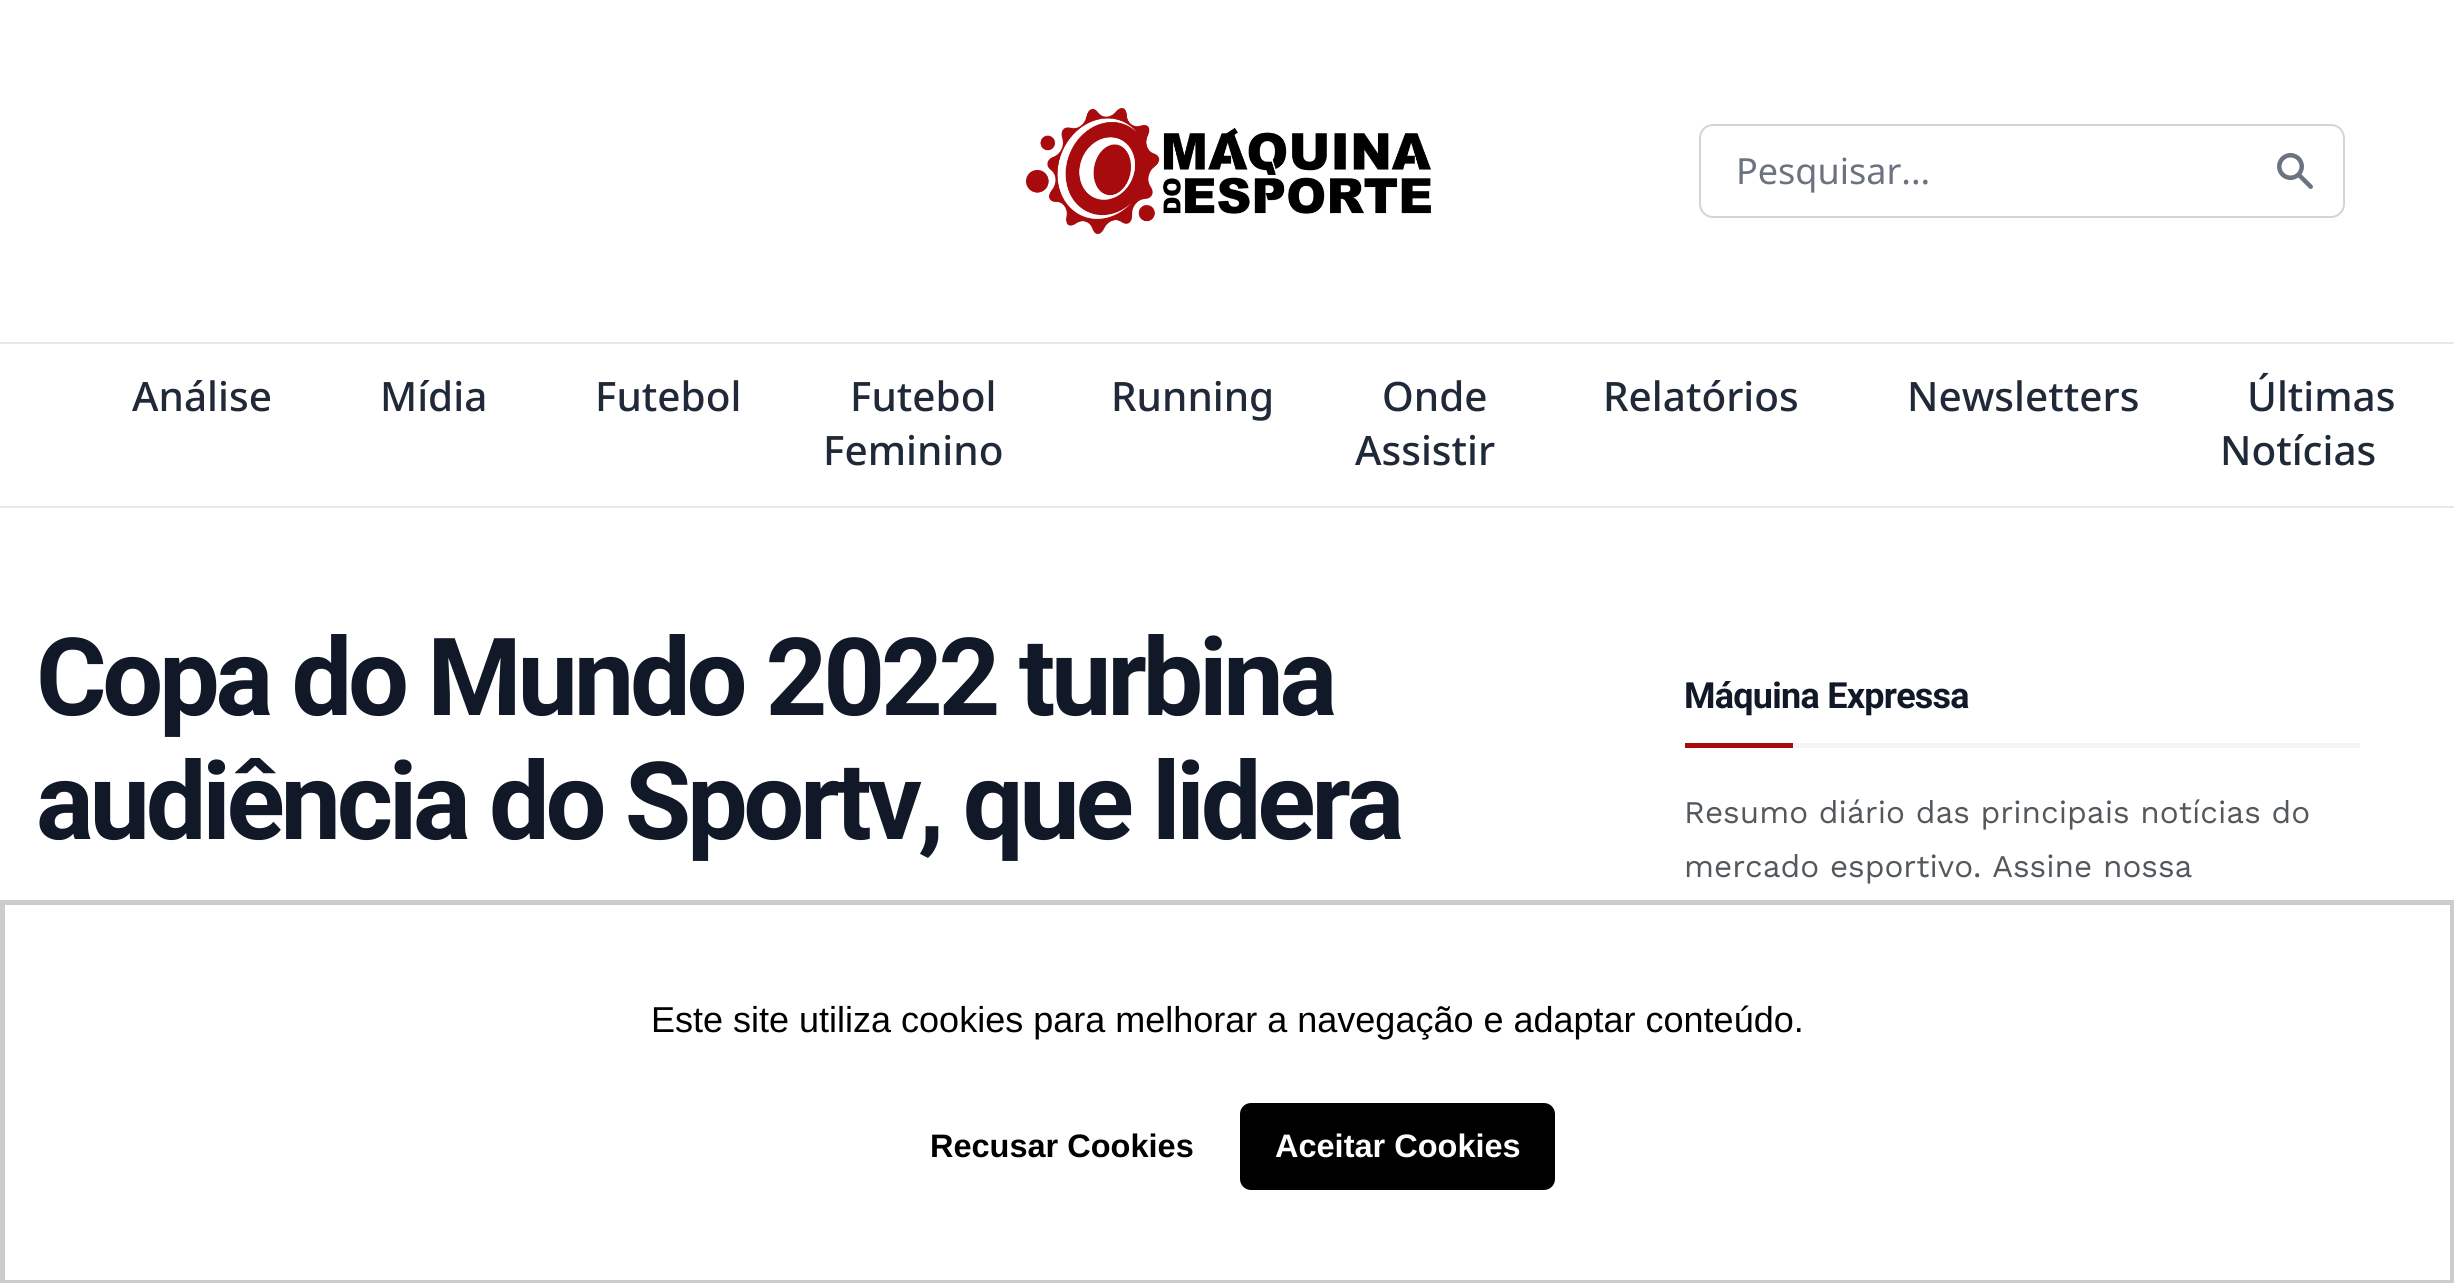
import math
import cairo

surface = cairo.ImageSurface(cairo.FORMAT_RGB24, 2454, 1283)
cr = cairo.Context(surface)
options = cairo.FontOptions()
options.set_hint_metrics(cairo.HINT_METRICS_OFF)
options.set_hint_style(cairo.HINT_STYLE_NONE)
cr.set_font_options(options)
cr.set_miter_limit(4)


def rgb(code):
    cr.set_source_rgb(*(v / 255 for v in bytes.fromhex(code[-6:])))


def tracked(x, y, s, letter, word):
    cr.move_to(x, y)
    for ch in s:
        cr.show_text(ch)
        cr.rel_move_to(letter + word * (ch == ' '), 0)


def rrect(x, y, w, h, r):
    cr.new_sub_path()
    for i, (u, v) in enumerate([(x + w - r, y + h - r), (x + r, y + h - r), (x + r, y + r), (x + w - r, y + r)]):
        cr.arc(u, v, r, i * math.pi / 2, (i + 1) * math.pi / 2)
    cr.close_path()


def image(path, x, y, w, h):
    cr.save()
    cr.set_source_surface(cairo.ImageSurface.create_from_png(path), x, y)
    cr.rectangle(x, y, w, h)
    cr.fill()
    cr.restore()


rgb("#ffffff")
cr.paint()
rgb("#e5e7eb")
cr.rectangle(0, 342, 2454, 2)
cr.fill()
image("img/1.png", 1026, 108, 405, 126)
rrect(1700, 125, 644, 92, 13)
rgb("#d1d5db")
cr.stroke()
image("img/2.png", 2277, 153, 36, 36)
for x, y, w, h, color in [
    (0, 506, 2454, 2, "#e5e7eb"),
    (1793, 743, 567, 5, "#f3f4f6"),
    (1685, 743, 108, 5, "#a70b0c"),
]:
    rgb(color)
    cr.rectangle(x, y, w, h)
    cr.fill()
cr.rectangle(2.5, 902.5, 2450, 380)
rgb("#cccccc")
cr.set_line_width(5)
cr.stroke()
rgb("#000000")
rrect(1240, 1103, 315, 87, 11)
cr.fill()
cr.select_font_face("Noto Sans")
cr.set_font_size(36)
rgb("#6b7280")
cr.move_to(1736, 184)
cr.show_text("Pesquisar...")
cr.select_font_face("Noto Sans Medium")
cr.set_font_size(40.5)
rgb("#1f2937")
for x, y, s in [
    (132, 411, "Análise"),
    (380, 411, "Mídia"),
    (595, 411, "Futebol"),
    (850, 411, "Futebol"),
    (823, 465, "Feminino"),
    (1111, 411, "Running"),
    (1382, 411, "Onde"),
    (1355, 465, "Assistir"),
    (1603, 411, "Relatórios"),
    (1907, 411, "Newsletters"),
    (2247, 411, "Últimas"),
    (2220, 465, "Notícias"),
]:
    cr.move_to(x, y)
    cr.show_text(s)
cr.select_font_face("Roboto", cairo.FONT_SLANT_NORMAL, cairo.FONT_WEIGHT_BOLD)
cr.set_font_size(108)
rgb("#111827")
tracked(36, 715, "Copa do Mundo 2022 turbina", -4.3, 0)
tracked(36, 839, "audiência do Sportv, que lidera", -4.3, 0)
cr.set_font_size(36)
tracked(1684, 708, "Máquina Expressa", -0.75, 0)
cr.select_font_face("Work Sans")
cr.set_font_size(31.5)
rgb("#53585c")
cr.move_to(1684, 823)
cr.show_text("Resumo diário das principais notícias do")
cr.move_to(1684, 877)
cr.show_text("mercado esportivo. Assine nossa")
cr.select_font_face("Liberation Sans")
cr.set_font_size(36)
rgb("#000000")
cr.move_to(651, 1032)
cr.show_text("Este site utiliza cookies para melhorar a navegação e adaptar conteúdo.")
cr.select_font_face("Liberation Sans", cairo.FONT_SLANT_NORMAL, cairo.FONT_WEIGHT_BOLD)
cr.set_font_size(32.5)
cr.move_to(930, 1157)
cr.show_text("Recusar Cookies")
rgb("#ffffff")
cr.move_to(1275, 1157)
cr.show_text("Aceitar Cookies")
surface.write_to_png("page.png")
